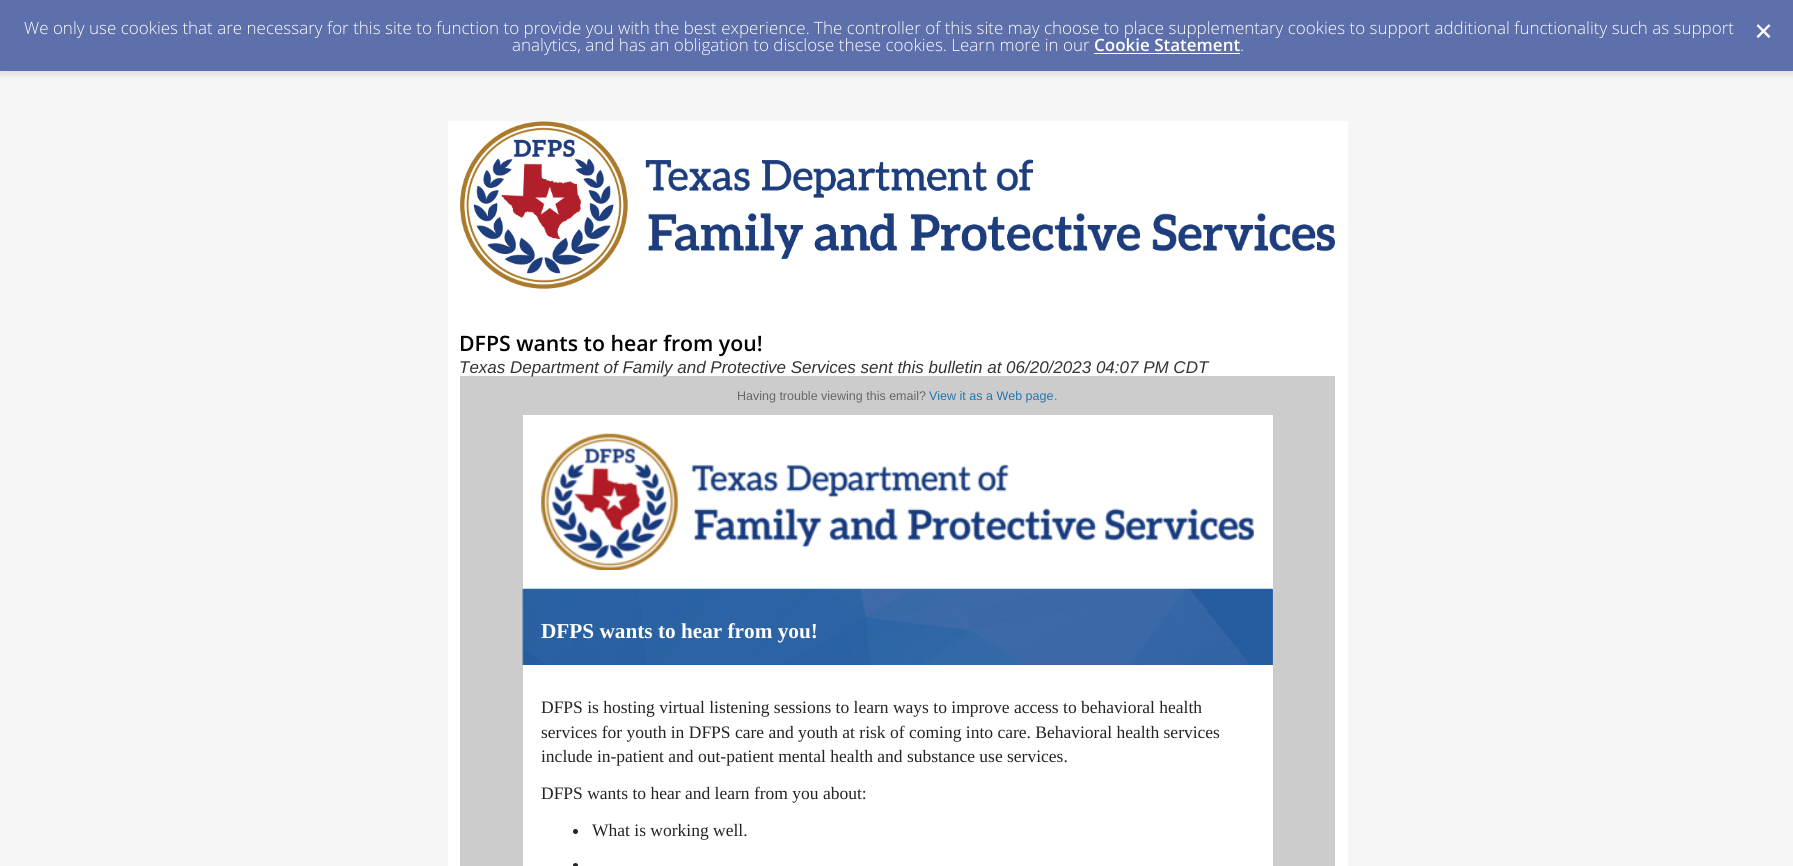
import math
import cairo

surface = cairo.ImageSurface(cairo.FORMAT_RGB24, 1793, 866)
cr = cairo.Context(surface)
options = cairo.FontOptions()
options.set_hint_metrics(cairo.HINT_METRICS_OFF)
options.set_hint_style(cairo.HINT_STYLE_NONE)
cr.set_font_options(options)
cr.set_miter_limit(4)


def rgb(code):
    cr.set_source_rgb(*(v / 255 for v in bytes.fromhex(code[-6:])))


def rrect(x, y, w, h, r):
    cr.new_sub_path()
    for i, (u, v) in enumerate([(x + w - r, y + h - r), (x + r, y + h - r), (x + r, y + r), (x + w - r, y + r)]):
        cr.arc(u, v, r, i * math.pi / 2, (i + 1) * math.pi / 2)
    cr.close_path()


def soft_shadow(x, y, w, h, r, blur, alpha):
    cr.push_group_with_content(cairo.CONTENT_ALPHA)
    cr.set_operator(cairo.OPERATOR_SOURCE)
    for i in range(15, -16, -2):
        e = blur * i / 6
        if min(w, h) + 2 * e > 0:
            cr.set_source_rgba(0, 0, 0, alpha * math.erfc((i - 1) / 8.5) / 2)
            rrect(x - e, y - e, w + 2 * e, h + 2 * e, max(0, min(r + e + blur * .6, min(w, h) / 2 + e)))
            cr.fill()
    cr.mask(cr.pop_group())


def image(path, x, y, w, h):
    cr.save()
    cr.set_source_surface(cairo.ImageSurface.create_from_png(path), x, y)
    cr.rectangle(x, y, w, h)
    cr.fill()
    cr.restore()


rgb("#f6f6f6")
cr.paint()
rgb("#000000")
soft_shadow(0, 4, 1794, 71, 0, 3, 0.1)
rgb("#5e70ab")
cr.rectangle(0, 0, 1793, 71)
cr.fill()
rgb("#ffffff")
cr.rectangle(1094, 53, 146, 1)
cr.fill()
image("img/1.png", 1756, 24, 15, 14)
cr.rectangle(448, 121, 900, 745)
cr.fill()
image("img/2.png", 460, 121, 875, 168)
rgb("#cccccc")
cr.rectangle(460, 376, 875, 490)
cr.fill()
rgb("#ffffff")
cr.rectangle(523, 415, 750, 451)
cr.fill()
image("img/3.png", 541, 433, 713, 137)
rgb("#4376b3")
cr.rectangle(1272, 589, 1, 76)
cr.fill()
image("img/4.png", 522, 588, 751, 77)
rgb("#242424")
cr.arc(575.5, 831.5, 2.5, 0, 2 * math.pi)
cr.fill()
cr.arc(575.5, 865.5, 2.5, 0, 2 * math.pi)
cr.fill()
cr.select_font_face("Open Sans Light")
cr.set_font_size(17)
rgb("#ffffff")
cr.move_to(24, 34)
cr.show_text("We only use cookies that are necessary for this site to function to provide you with the best experience. The controller of this site may choose to place supplementary cookies to support additional functionality such as support")
cr.move_to(512, 51)
cr.show_text("analytics, and has an obligation to disclose these cookies. Learn more in our")
cr.select_font_face("Open Sans SemiBold")
cr.move_to(1094, 51)
cr.show_text("Cookie Statement")
cr.select_font_face("Open Sans Light")
cr.move_to(1240, 51)
cr.show_text(".")
cr.select_font_face("Open Sans SemiBold")
cr.set_font_size(21.25)
rgb("#000000")
cr.move_to(459, 351)
cr.show_text("DFPS wants to hear from you!")
cr.select_font_face("Liberation Sans", cairo.FONT_SLANT_ITALIC)
cr.set_font_size(17)
rgb("#333333")
cr.move_to(459, 373)
cr.show_text("Texas Department of Family and Protective Services sent this bulletin at 06/20/2023 04:07 PM CDT")
cr.select_font_face("Liberation Sans")
cr.set_font_size(12.5)
rgb("#666666")
cr.move_to(737, 400)
cr.show_text("Having trouble viewing this email?")
rgb("#2176ae")
cr.move_to(929, 400)
cr.show_text("View it as a Web page")
rgb("#666666")
cr.move_to(1054, 400)
cr.show_text(".")
cr.select_font_face("Liberation Serif", cairo.FONT_SLANT_NORMAL, cairo.FONT_WEIGHT_BOLD)
cr.set_font_size(21.25)
rgb("#ffffff")
cr.move_to(541, 638)
cr.show_text("DFPS wants to hear from you!")
cr.select_font_face("Liberation Serif")
cr.set_font_size(17.5)
rgb("#242424")
for x, y, s in [
    (541, 713, "DFPS is hosting virtual listening sessions to learn ways to improve access to behavioral health"),
    (541, 738, "services for youth in DFPS care and youth at risk of coming into care. Behavioral health services"),
    (541, 762, "include in-patient and out-patient mental health and substance use services."),
    (541, 799, "DFPS wants to hear and learn from you about:"),
    (592, 836, "What is working well."),
]:
    cr.move_to(x, y)
    cr.show_text(s)
surface.write_to_png("page.png")
